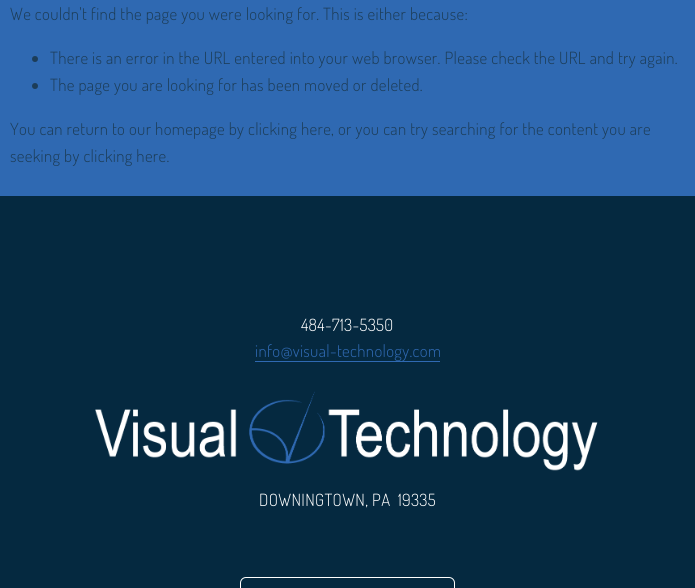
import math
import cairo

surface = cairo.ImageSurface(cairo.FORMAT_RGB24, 695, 588)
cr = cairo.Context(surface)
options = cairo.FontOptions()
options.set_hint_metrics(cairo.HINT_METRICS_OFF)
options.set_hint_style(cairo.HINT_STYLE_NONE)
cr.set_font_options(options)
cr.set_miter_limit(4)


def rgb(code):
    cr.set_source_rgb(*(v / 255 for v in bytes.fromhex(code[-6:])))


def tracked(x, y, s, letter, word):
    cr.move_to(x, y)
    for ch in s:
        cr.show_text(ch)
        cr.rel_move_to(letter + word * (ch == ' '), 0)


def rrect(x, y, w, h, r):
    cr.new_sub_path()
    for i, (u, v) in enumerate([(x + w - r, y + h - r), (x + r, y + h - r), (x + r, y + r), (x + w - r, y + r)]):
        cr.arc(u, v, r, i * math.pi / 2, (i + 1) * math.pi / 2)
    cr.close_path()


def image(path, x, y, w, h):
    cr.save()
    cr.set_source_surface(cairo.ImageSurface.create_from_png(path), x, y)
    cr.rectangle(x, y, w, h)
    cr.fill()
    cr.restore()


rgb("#2f69b2")
cr.paint()
rgb("#1c3d59")
cr.arc(35, 59, 3, 0, 2 * math.pi)
cr.fill()
cr.arc(35, 86, 3, 0, 2 * math.pi)
cr.fill()
rgb("#052940")
cr.rectangle(0, 196, 695, 392)
cr.fill()
rgb("#2f69b2")
cr.rectangle(255, 361, 185, 1)
cr.fill()
image("img/1.png", 95, 391, 503, 80)
rrect(240.5, 577.5, 214, 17, 5.5)
rgb("#ffffff")
cr.set_line_width(1)
cr.stroke()
cr.select_font_face("Dosis Light")
cr.set_font_size(16.85)
rgb("#1c3d59")
for x, y, s in [
    (10, 20, "We couldn't find the page you were looking for. This is either because:"),
    (50, 64, "There is an error in the URL entered into your web browser. Please check the URL and try again."),
    (50, 91, "The page you are looking for has been moved or deleted."),
    (10, 135, "You can return to our homepage by clicking here, or you can try searching for the content you are"),
    (10, 162, "seeking by clicking here."),
]:
    tracked(x, y, s, 0.35, 0)
rgb("#ffffff")
tracked(301, 331, "484-713-5350", 0.35, 0)
rgb("#2f69b2")
tracked(255, 357, "info@visual-technology.com", 0.35, 0)
rgb("#ffffff")
tracked(259, 506, "DOWNINGTOWN, PA  19335", 0.35, 0)
surface.write_to_png("page.png")
